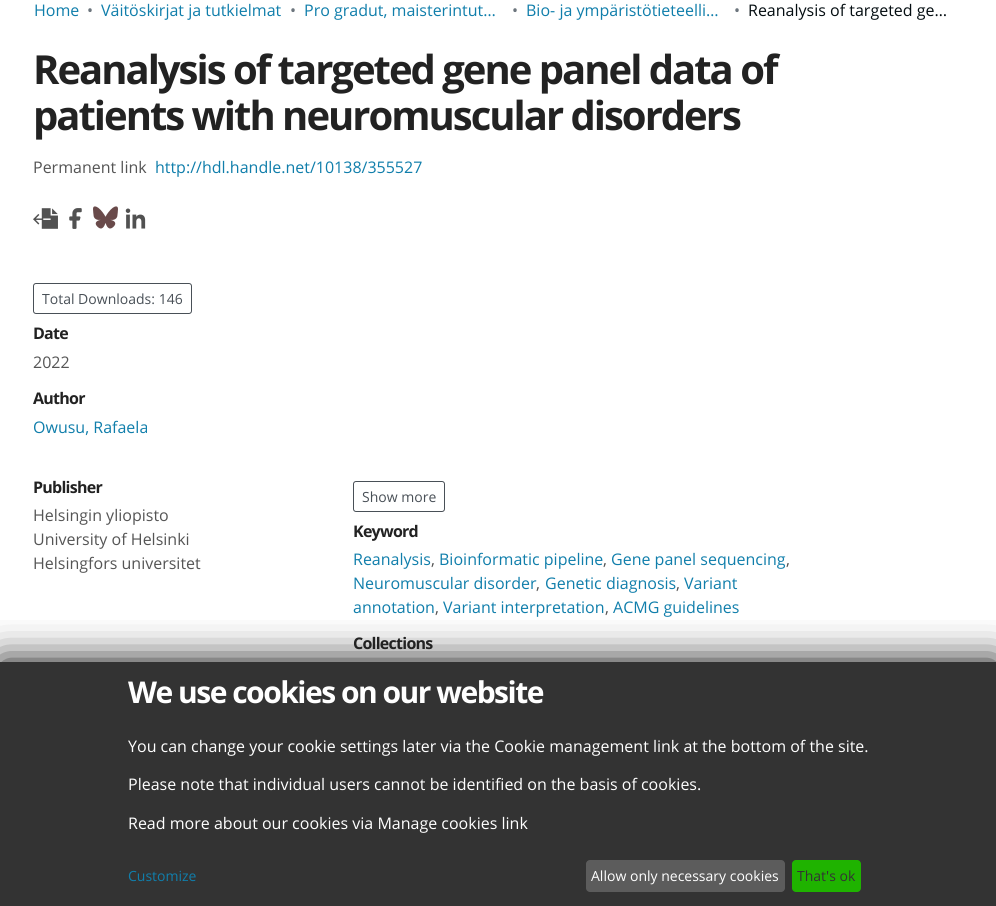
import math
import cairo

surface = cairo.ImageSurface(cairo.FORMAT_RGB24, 996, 906)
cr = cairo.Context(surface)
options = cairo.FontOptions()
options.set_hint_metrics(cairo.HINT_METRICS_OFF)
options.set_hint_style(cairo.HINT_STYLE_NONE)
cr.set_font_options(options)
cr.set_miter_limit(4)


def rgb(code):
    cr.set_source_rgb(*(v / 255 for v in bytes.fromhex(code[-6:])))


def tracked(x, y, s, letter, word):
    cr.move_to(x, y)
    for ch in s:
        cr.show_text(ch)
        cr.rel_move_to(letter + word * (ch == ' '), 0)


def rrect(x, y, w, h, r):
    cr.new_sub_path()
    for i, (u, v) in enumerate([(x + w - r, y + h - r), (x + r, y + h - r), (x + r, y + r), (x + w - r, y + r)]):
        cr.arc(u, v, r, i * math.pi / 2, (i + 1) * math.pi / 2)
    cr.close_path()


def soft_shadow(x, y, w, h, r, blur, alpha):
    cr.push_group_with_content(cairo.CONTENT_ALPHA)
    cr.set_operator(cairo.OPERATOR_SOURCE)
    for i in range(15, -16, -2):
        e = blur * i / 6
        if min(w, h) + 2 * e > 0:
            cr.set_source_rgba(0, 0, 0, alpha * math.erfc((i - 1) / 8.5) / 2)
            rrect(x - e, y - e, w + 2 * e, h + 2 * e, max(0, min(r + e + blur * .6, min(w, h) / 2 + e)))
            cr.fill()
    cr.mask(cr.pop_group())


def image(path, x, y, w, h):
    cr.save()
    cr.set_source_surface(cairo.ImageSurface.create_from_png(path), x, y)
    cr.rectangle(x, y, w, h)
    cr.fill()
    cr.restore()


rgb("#ffffff")
cr.paint()
image("img/1.png", 33, 208, 25, 21)
image("img/2.png", 69, 208, 13, 21)
image("img/3.png", 93, 206, 25, 23)
image("img/4.png", 125, 208, 21, 21)
rrect(33.5, 283.5, 158, 30, 2.5)
rgb("#495057")
cr.set_line_width(1)
cr.stroke()
rrect(353.5, 481.5, 91, 30, 2.5)
cr.stroke()
rgb("#333333")
cr.rectangle(0, 662, 996, 244)
cr.fill()
cr.save()
cr.rectangle(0, 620, 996, 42)
cr.clip()
rgb("#121212")
soft_shadow(0, 661, 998, 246, 0, 20, 1)
cr.restore()
rgb("#5c5c5c")
rrect(586, 860, 199, 32, 4)
cr.fill()
rgb("#1fb300")
rrect(792, 860, 69, 32, 4)
cr.fill()
cr.select_font_face("Open Sans")
cr.set_font_size(16)
rgb("#107eab")
cr.move_to(34, 16)
cr.show_text("Home")
rgb("#6c757d")
cr.move_to(87, 16)
cr.show_text("•")
rgb("#107eab")
cr.move_to(101, 16)
cr.show_text("Väitöskirjat ja tutkielmat")
rgb("#6c757d")
cr.move_to(290, 16)
cr.show_text("•")
rgb("#107eab")
cr.move_to(304, 16)
cr.show_text("Pro gradut, maisterintut…")
rgb("#6c757d")
cr.move_to(512, 16)
cr.show_text("•")
rgb("#107eab")
cr.move_to(526, 16)
cr.show_text("Bio- ja ympäristötieteelli…")
rgb("#6c757d")
cr.move_to(734, 16)
cr.show_text("•")
rgb("#040d11")
cr.move_to(748, 16)
cr.show_text("Reanalysis of targeted ge…")
cr.select_font_face("Open Sans", cairo.FONT_SLANT_NORMAL, cairo.FONT_WEIGHT_BOLD)
cr.set_font_size(40)
rgb("#222222")
tracked(33, 84, "Reanalysis of targeted gene panel data of", -2, 0)
tracked(33, 130, "patients with neuromuscular disorders", -2, 0)
cr.select_font_face("Open Sans")
cr.set_font_size(16)
rgb("#555555")
cr.move_to(33, 173)
cr.show_text("Permanent link")
rgb("#107eab")
cr.move_to(155, 173)
cr.show_text("http://hdl.handle.net/10138/355527")
cr.set_font_size(14)
rgb("#495057")
cr.move_to(42, 304)
cr.show_text("Total Downloads: 146")
cr.select_font_face("Open Sans", cairo.FONT_SLANT_NORMAL, cairo.FONT_WEIGHT_BOLD)
cr.set_font_size(16)
rgb("#222222")
tracked(33, 339, "Date", -0.75, 0)
cr.select_font_face("Open Sans")
rgb("#555555")
cr.move_to(33, 368)
cr.show_text("2022")
cr.select_font_face("Open Sans", cairo.FONT_SLANT_NORMAL, cairo.FONT_WEIGHT_BOLD)
rgb("#222222")
tracked(33, 404, "Author", -0.75, 0)
cr.select_font_face("Open Sans")
rgb("#107eab")
cr.move_to(33, 433)
cr.show_text("Owusu, Rafaela")
cr.select_font_face("Open Sans", cairo.FONT_SLANT_NORMAL, cairo.FONT_WEIGHT_BOLD)
rgb("#222222")
tracked(33, 493, "Publisher", -0.75, 0)
cr.select_font_face("Open Sans")
rgb("#555555")
for x, y, s in [
    (33, 521, "Helsingin yliopisto"),
    (33, 545, "University of Helsinki"),
    (33, 569, "Helsingfors universitet"),
]:
    cr.move_to(x, y)
    cr.show_text(s)
cr.set_font_size(14)
rgb("#495057")
cr.move_to(362, 502)
cr.show_text("Show more")
cr.select_font_face("Open Sans", cairo.FONT_SLANT_NORMAL, cairo.FONT_WEIGHT_BOLD)
cr.set_font_size(16)
rgb("#222222")
tracked(353, 537, "Keyword", -0.75, 0)
cr.select_font_face("Open Sans")
rgb("#107eab")
cr.move_to(353, 565)
cr.show_text("Reanalysis")
rgb("#555555")
cr.move_to(431, 565)
cr.show_text(",")
rgb("#107eab")
cr.move_to(439, 565)
cr.show_text("Bioinformatic pipeline")
rgb("#555555")
cr.move_to(603, 565)
cr.show_text(",")
rgb("#107eab")
cr.move_to(611, 565)
cr.show_text("Gene panel sequencing")
rgb("#555555")
cr.move_to(786, 565)
cr.show_text(",")
rgb("#107eab")
cr.move_to(353, 589)
cr.show_text("Neuromuscular disorder")
rgb("#555555")
cr.move_to(536, 589)
cr.show_text(",")
rgb("#107eab")
cr.move_to(545, 589)
cr.show_text("Genetic diagnosis")
rgb("#555555")
cr.move_to(676, 589)
cr.show_text(",")
rgb("#107eab")
cr.move_to(684, 589)
cr.show_text("Variant")
cr.move_to(353, 613)
cr.show_text("annotation")
rgb("#555555")
cr.move_to(435, 613)
cr.show_text(",")
rgb("#107eab")
cr.move_to(443, 613)
cr.show_text("Variant interpretation")
rgb("#555555")
cr.move_to(605, 613)
cr.show_text(",")
rgb("#107eab")
cr.move_to(613, 613)
cr.show_text("ACMG guidelines")
cr.select_font_face("Open Sans", cairo.FONT_SLANT_NORMAL, cairo.FONT_WEIGHT_BOLD)
rgb("#222222")
tracked(353, 649, "Collections", -0.75, 0)
cr.set_font_size(30)
rgb("#ffffff")
tracked(128, 703, "We use cookies on our website", -1.5, 0)
cr.select_font_face("Open Sans")
cr.set_font_size(16)
for x, y, s in [
    (128, 752, "You can change your cookie settings later via the Cookie management link at the bottom of the site."),
    (128, 790, "Please note that individual users cannot be identified on the basis of cookies."),
    (128, 829, "Read more about our cookies via Manage cookies link"),
]:
    cr.move_to(x, y)
    cr.show_text(s)
cr.set_font_size(14)
rgb("#107eab")
cr.move_to(128, 881)
cr.show_text("Customize")
rgb("#ffffff")
cr.move_to(591, 881)
cr.show_text("Allow only necessary cookies")
rgb("#333333")
cr.move_to(797, 881)
cr.show_text("That's ok")
surface.write_to_png("page.png")
